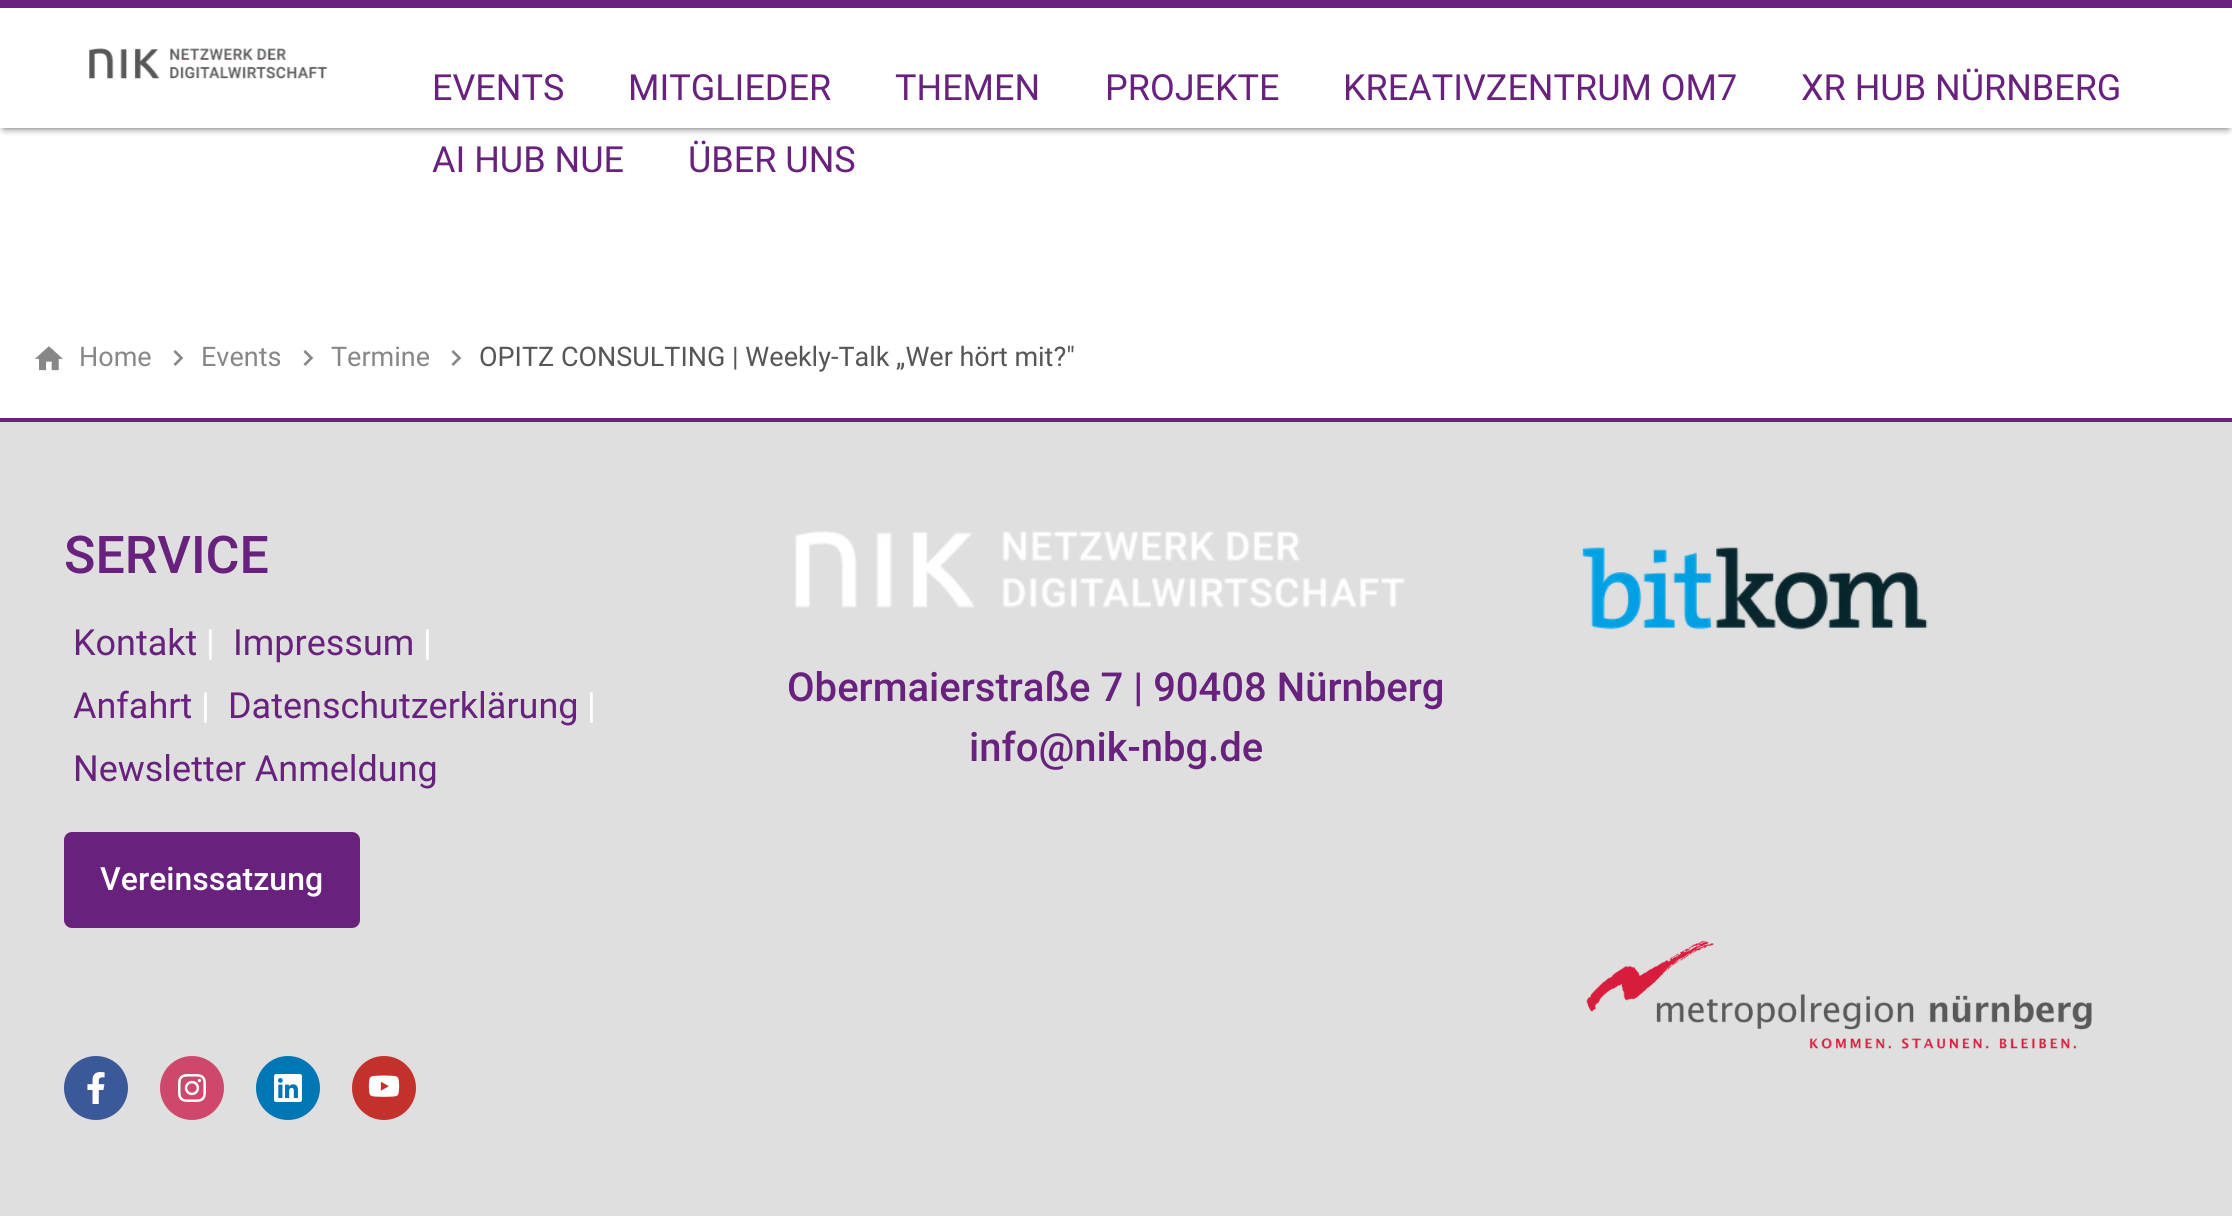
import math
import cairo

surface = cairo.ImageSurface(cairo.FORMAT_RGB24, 2232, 1216)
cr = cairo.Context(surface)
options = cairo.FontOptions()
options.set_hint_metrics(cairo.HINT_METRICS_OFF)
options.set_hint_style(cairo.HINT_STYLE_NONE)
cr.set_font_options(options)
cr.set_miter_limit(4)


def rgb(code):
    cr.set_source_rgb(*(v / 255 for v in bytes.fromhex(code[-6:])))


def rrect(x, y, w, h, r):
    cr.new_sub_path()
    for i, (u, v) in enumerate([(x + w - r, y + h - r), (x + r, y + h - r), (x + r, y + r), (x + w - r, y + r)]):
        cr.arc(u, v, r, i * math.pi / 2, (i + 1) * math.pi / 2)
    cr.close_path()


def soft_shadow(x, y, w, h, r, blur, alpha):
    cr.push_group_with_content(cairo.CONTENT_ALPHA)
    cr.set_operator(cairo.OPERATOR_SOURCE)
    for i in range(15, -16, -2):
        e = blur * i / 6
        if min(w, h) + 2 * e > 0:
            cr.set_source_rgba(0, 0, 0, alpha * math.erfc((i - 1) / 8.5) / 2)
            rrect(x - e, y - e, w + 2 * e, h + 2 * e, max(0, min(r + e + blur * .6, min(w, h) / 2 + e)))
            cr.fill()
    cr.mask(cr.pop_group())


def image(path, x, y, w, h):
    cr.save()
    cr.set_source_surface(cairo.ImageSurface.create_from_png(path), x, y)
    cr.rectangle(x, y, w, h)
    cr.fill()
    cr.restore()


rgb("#ffffff")
cr.paint()
rgb("#68227e")
cr.rectangle(0, 0, 2232, 8)
cr.fill()
cr.save()
cr.rectangle(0, 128, 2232, 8)
cr.clip()
rgb("#565655")
soft_shadow(4, 16, 2224, 112, 0, 4, 1)
cr.restore()
image("img/1.png", 89, 48, 239, 31)
image("img/2.png", 35, 346, 28, 25)
image("img/3.png", 173, 350, 11, 16)
image("img/3.png", 303, 350, 11, 16)
image("img/3.png", 451, 350, 11, 16)
rgb("#dfdfdf")
cr.rectangle(0, 422, 2232, 794)
cr.fill()
rgb("#68227e")
cr.rectangle(0, 418, 2232, 4)
cr.fill()
rrect(64, 832, 296, 96, 8)
cr.fill()
image("img/4.png", 1582, 547, 346, 83)
image("img/5.png", 795, 531, 610, 77)
image("img/6.png", 1586, 940, 506, 109)
rgb("#3b5998")
cr.arc(96, 1088, 32, 0, 2 * math.pi)
cr.fill()
image("img/7.png", 87, 1072, 18, 32)
rgb("#cd486b")
cr.arc(192, 1088, 32, 0, 2 * math.pi)
cr.fill()
image("img/8.png", 178, 1074, 28, 28)
rgb("#0077b5")
cr.arc(288, 1088, 32, 0, 2 * math.pi)
cr.fill()
image("img/9.png", 274, 1074, 28, 28)
rgb("#c4302b")
cr.arc(384, 1088, 32, 0, 2 * math.pi)
cr.fill()
image("img/10.png", 368, 1075, 32, 22)
cr.select_font_face("Roboto")
cr.set_font_size(36)
rgb("#68227e")
for x, y, s in [
    (432, 100, "EVENTS"),
    (628, 100, "MITGLIEDER"),
    (895, 100, "THEMEN"),
    (1105, 100, "PROJEKTE"),
    (1343, 100, "KREATIVZENTRUM OM7"),
    (1801, 100, "XR HUB NÜRNBERG"),
    (432, 172, "AI HUB NUE"),
    (688, 172, "ÜBER UNS"),
]:
    cr.move_to(x, y)
    cr.show_text(s)
cr.set_font_size(27)
rgb("#868786")
for x, y, s in [
    (79, 366, "Home"),
    (201, 366, "Events"),
    (331, 366, "Termine"),
]:
    cr.move_to(x, y)
    cr.show_text(s)
rgb("#565655")
cr.move_to(479, 366)
cr.show_text("OPITZ CONSULTING | Weekly-Talk „Wer hört mit?\"")
cr.select_font_face("Roboto Medium")
cr.set_font_size(52)
rgb("#68227e")
cr.move_to(64, 573)
cr.show_text("SERVICE")
cr.select_font_face("Roboto")
cr.set_font_size(36)
cr.move_to(73, 655)
cr.show_text("Kontakt")
rgb("#ffffff")
cr.move_to(206, 655)
cr.show_text("|")
rgb("#68227e")
cr.move_to(233, 655)
cr.show_text("Impressum")
rgb("#ffffff")
cr.move_to(423, 655)
cr.show_text("|")
rgb("#68227e")
cr.move_to(73, 718)
cr.show_text("Anfahrt")
rgb("#ffffff")
cr.move_to(201, 718)
cr.show_text("|")
rgb("#68227e")
cr.move_to(228, 718)
cr.show_text("Datenschutzerklärung")
rgb("#ffffff")
cr.move_to(587, 718)
cr.show_text("|")
rgb("#68227e")
cr.move_to(73, 781)
cr.show_text("Newsletter Anmeldung")
cr.select_font_face("Roboto Medium")
cr.set_font_size(32)
rgb("#ffffff")
cr.move_to(100, 890)
cr.show_text("Vereinssatzung")
cr.set_font_size(40)
rgb("#68227e")
cr.move_to(787, 701)
cr.show_text("Obermaierstraße 7 | 90408 Nürnberg")
cr.move_to(969, 761)
cr.show_text("info@nik-nbg.de")
surface.write_to_png("page.png")
